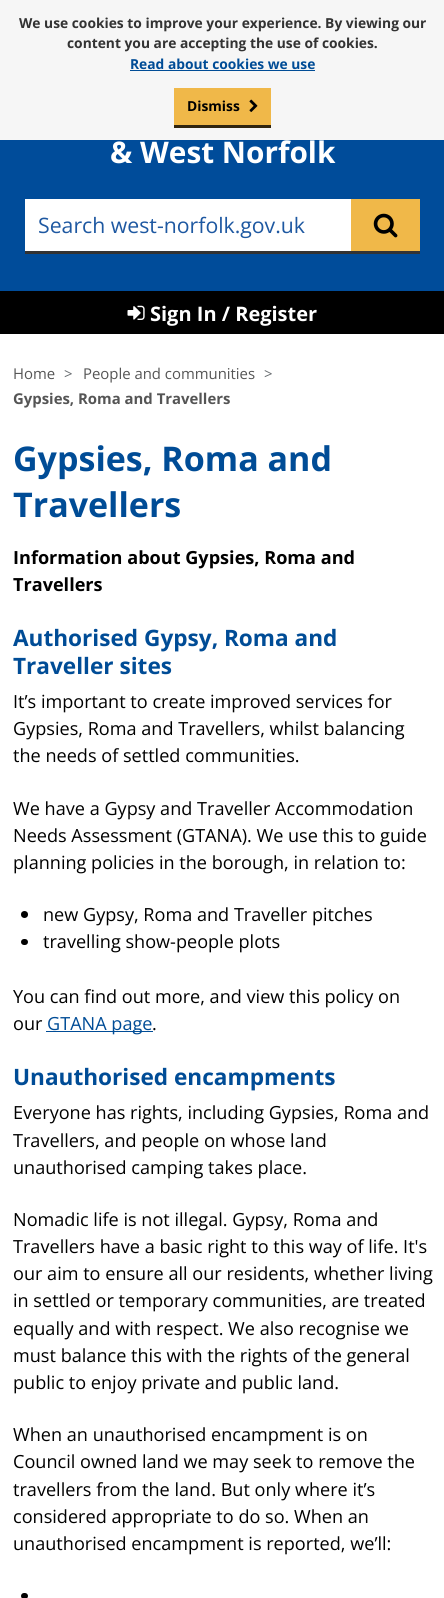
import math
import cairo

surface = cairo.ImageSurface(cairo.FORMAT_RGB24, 444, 1598)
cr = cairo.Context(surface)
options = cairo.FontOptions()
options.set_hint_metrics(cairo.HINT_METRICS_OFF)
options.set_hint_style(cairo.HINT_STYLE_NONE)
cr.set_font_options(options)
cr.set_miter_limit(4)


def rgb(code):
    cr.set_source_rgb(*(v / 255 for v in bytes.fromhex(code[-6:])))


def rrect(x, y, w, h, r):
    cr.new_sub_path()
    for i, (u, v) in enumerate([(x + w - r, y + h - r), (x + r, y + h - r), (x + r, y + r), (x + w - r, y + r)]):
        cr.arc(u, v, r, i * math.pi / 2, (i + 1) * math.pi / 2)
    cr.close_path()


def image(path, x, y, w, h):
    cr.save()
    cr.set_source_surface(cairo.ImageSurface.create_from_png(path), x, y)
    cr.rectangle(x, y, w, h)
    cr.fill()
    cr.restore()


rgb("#ffffff")
cr.paint()
for x, y, w, h, color in [
    (0, 0, 444, 140, "#f6f6f6"),
    (130, 70, 185, 1, "#004c96"),
    (174, 88, 97, 37, "#f0b849"),
    (174, 125, 97, 3, "#30250f"),
]:
    rgb(color)
    cr.rectangle(x, y, w, h)
    cr.fill()
image("img/1.png", 249, 99, 9, 13)
for x, y, w, h, color in [
    (0, 140, 444, 151, "#004c9a"),
    (25, 199, 326, 52, "#ffffff"),
    (25, 251, 395, 3, "#333333"),
    (351, 199, 69, 52, "#f0b849"),
]:
    rgb(color)
    cr.rectangle(x, y, w, h)
    cr.fill()
image("img/2.png", 373, 213, 25, 25)
rgb("#000000")
cr.rectangle(0, 291, 444, 43)
cr.fill()
image("img/3.png", 127, 305, 18, 15)
cr.arc(24.5, 914.5, 3.5, 0, 2 * math.pi)
cr.fill()
rrect(21, 939, 7, 6, 3)
cr.fill()
rgb("#004c96")
cr.rectangle(46, 1031, 107, 1)
cr.fill()
rgb("#000000")
rrect(21, 1593, 7, 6, 3)
cr.fill()
cr.select_font_face("Open Sans", cairo.FONT_SLANT_NORMAL, cairo.FONT_WEIGHT_BOLD)
cr.set_font_size(13.8)
rgb("#333333")
cr.move_to(19, 28)
cr.show_text("We use cookies to improve your experience. By viewing our")
cr.move_to(67, 48)
cr.show_text("content you are accepting the use of cookies.")
rgb("#004c96")
cr.move_to(130, 69)
cr.show_text("Read about cookies we use")
rgb("#000000")
cr.move_to(187, 111)
cr.show_text("Dismiss")
cr.set_font_size(29.75)
rgb("#ffffff")
cr.move_to(110, 163)
cr.show_text("& West Norfolk")
cr.select_font_face("Open Sans")
cr.set_font_size(21.25)
rgb("#1e58a1")
cr.move_to(38, 233)
cr.show_text("Search west-norfolk.gov.uk")
cr.select_font_face("Open Sans", cairo.FONT_SLANT_NORMAL, cairo.FONT_WEIGHT_BOLD)
cr.set_font_size(20)
rgb("#ffffff")
cr.move_to(150, 321)
cr.show_text("Sign In / Register")
cr.select_font_face("Open Sans")
cr.set_font_size(14.9)
rgb("#555555")
cr.move_to(13, 379)
cr.show_text("Home")
rgb("#666b6f")
cr.move_to(64, 379)
cr.show_text(">")
rgb("#555555")
cr.move_to(83, 379)
cr.show_text("People and communities")
rgb("#666b6f")
cr.move_to(264, 379)
cr.show_text(">")
cr.select_font_face("Open Sans", cairo.FONT_SLANT_NORMAL, cairo.FONT_WEIGHT_BOLD)
rgb("#555555")
cr.move_to(13, 404)
cr.show_text("Gypsies, Roma and Travellers")
cr.set_font_size(34)
rgb("#004c96")
cr.move_to(13, 471)
cr.show_text("Gypsies, Roma and")
cr.move_to(13, 517)
cr.show_text("Travellers")
cr.set_font_size(18.1)
rgb("#000000")
cr.move_to(13, 564)
cr.show_text("Information about Gypsies, Roma and")
cr.move_to(13, 591)
cr.show_text("Travellers")
cr.set_font_size(22.6)
rgb("#004c96")
cr.move_to(13, 646)
cr.show_text("Authorised Gypsy, Roma and")
cr.move_to(13, 674)
cr.show_text("Traveller sites")
cr.select_font_face("Open Sans")
cr.set_font_size(18.1)
rgb("#000000")
for x, y, s in [
    (13, 708, "It’s important to create improved services for"),
    (13, 735, "Gypsies, Roma and Travellers, whilst balancing"),
    (13, 762, "the needs of settled communities."),
    (13, 815, "We have a Gypsy and Traveller Accommodation"),
    (13, 842, "Needs Assessment (GTANA). We use this to guide"),
    (13, 869, "planning policies in the borough, in relation to:"),
    (43, 921, "new Gypsy, Roma and Traveller pitches"),
    (43, 948, "travelling show-people plots"),
    (13, 1003, "You can find out more, and view this policy on"),
    (13, 1030, "our"),
]:
    cr.move_to(x, y)
    cr.show_text(s)
rgb("#004c96")
cr.move_to(47, 1030)
cr.show_text("GTANA page")
rgb("#000000")
cr.move_to(152, 1030)
cr.show_text(".")
cr.select_font_face("Open Sans", cairo.FONT_SLANT_NORMAL, cairo.FONT_WEIGHT_BOLD)
cr.set_font_size(22.6)
rgb("#004c96")
cr.move_to(13, 1085)
cr.show_text("Unauthorised encampments")
cr.select_font_face("Open Sans")
cr.set_font_size(18.1)
rgb("#000000")
for x, y, s in [
    (13, 1119, "Everyone has rights, including Gypsies, Roma and"),
    (13, 1147, "Travellers, and people on whose land"),
    (13, 1174, "unauthorised camping takes place."),
    (13, 1226, "Nomadic life is not illegal. Gypsy, Roma and"),
    (13, 1253, "Travellers have a basic right to this way of life. It's"),
    (13, 1280, "our aim to ensure all our residents, whether living"),
    (13, 1307, "in settled or temporary communities, are treated"),
    (13, 1335, "equally and with respect. We also recognise we"),
    (13, 1362, "must balance this with the rights of the general"),
    (13, 1389, "public to enjoy private and public land."),
    (13, 1441, "When an unauthorised encampment is on"),
    (13, 1468, "Council owned land we may seek to remove the"),
    (13, 1496, "travellers from the land. But only where it’s"),
    (13, 1523, "considered appropriate to do so. When an"),
    (13, 1550, "unauthorised encampment is reported, we’ll:"),
]:
    cr.move_to(x, y)
    cr.show_text(s)
surface.write_to_png("page.png")
